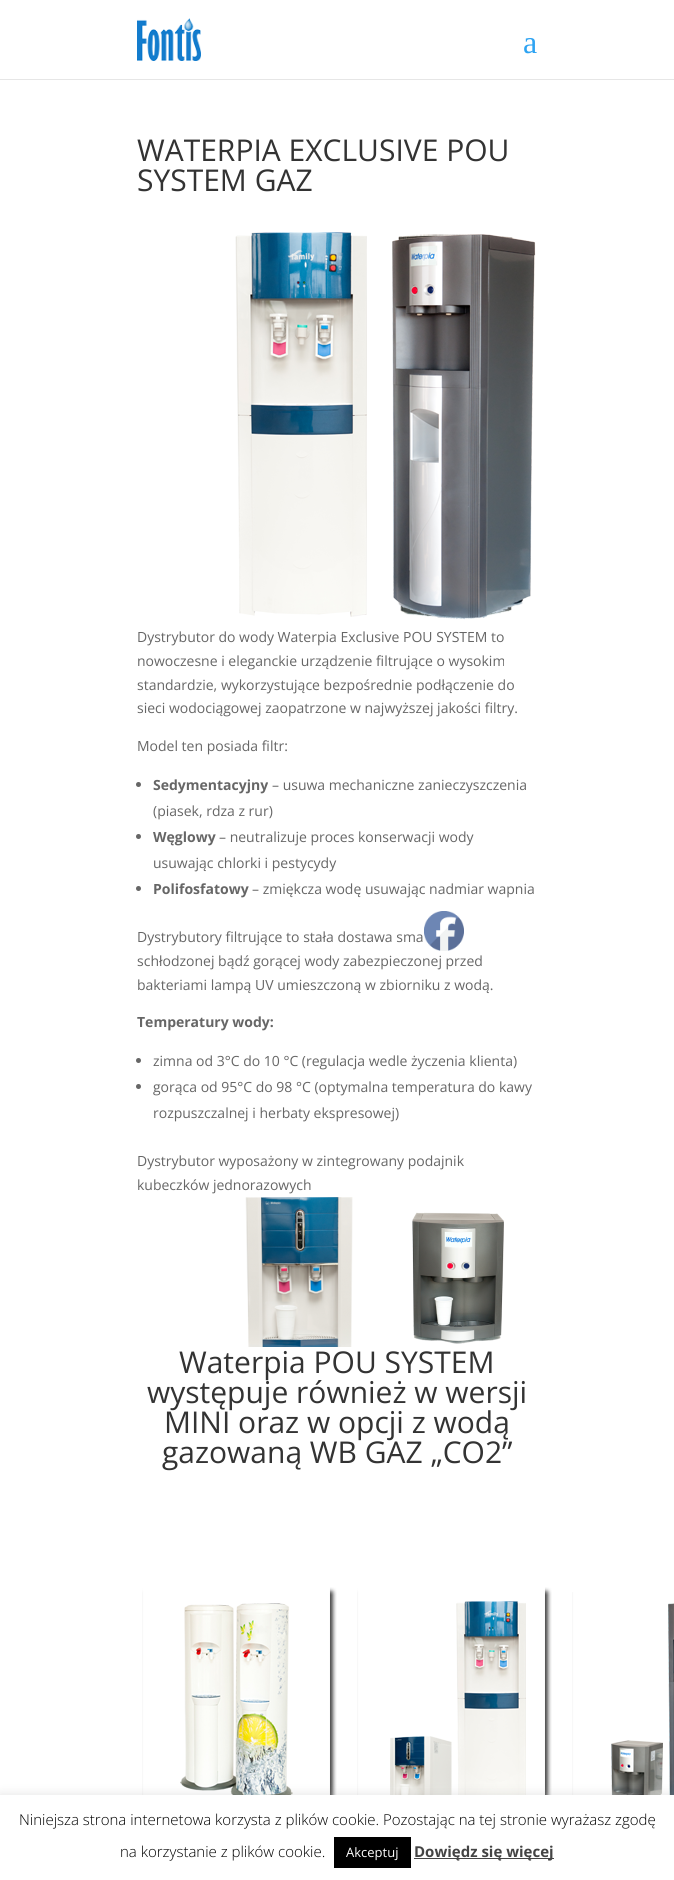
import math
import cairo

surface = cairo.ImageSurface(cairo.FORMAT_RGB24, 674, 1880)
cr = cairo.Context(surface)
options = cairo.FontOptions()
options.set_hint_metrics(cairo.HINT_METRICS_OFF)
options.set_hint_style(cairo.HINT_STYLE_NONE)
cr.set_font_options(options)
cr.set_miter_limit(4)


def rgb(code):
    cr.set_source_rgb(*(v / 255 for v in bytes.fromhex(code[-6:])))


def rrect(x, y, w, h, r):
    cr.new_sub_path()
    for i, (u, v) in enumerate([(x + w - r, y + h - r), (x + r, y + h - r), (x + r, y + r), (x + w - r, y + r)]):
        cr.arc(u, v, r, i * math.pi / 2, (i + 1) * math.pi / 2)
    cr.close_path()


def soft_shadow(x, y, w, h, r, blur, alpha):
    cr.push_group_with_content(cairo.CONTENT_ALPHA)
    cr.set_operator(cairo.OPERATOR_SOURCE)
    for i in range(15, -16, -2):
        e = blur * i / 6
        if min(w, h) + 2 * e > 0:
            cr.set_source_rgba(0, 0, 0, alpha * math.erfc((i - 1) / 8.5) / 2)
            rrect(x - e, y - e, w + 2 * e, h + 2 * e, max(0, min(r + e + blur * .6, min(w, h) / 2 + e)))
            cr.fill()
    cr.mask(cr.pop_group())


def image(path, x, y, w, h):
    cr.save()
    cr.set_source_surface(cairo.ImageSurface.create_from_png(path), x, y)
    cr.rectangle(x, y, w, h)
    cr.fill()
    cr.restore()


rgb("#ffffff")
cr.paint()
rgb("#e6e6e6")
cr.rectangle(0, 79, 674, 1)
cr.fill()
image("img/1.png", 137, 18, 64, 43)
image("img/2.png", 235, 232, 132, 385)
image("img/3.png", 392, 234, 144, 386)
rgb("#666666")
cr.arc(138.5, 784.5, 2.5, 0, 2 * math.pi)
cr.fill()
cr.arc(138.5, 836.5, 2.5, 0, 2 * math.pi)
cr.fill()
cr.arc(138.5, 888.5, 2.5, 0, 2 * math.pi)
cr.fill()
cr.arc(138.5, 1060.5, 2.5, 0, 2 * math.pi)
cr.fill()
cr.arc(138.5, 1086.5, 2.5, 0, 2 * math.pi)
cr.fill()
image("img/4.png", 245, 1197, 108, 150)
image("img/5.png", 412, 1212, 92, 132)
image("img/6.png", 142, 1587, 195, 208)
image("img/7.png", 357, 1587, 195, 208)
image("img/8.png", 572, 1592, 102, 203)
image("img/9.png", 424, 911, 40, 40)
rgb("#acabab")
soft_shadow(0, 1794, 674, 85, 0, 5, 0.3)
for x, y, w, h, color in [
    (0, 1795, 674, 85, "#ffffff"),
    (334, 1837, 77, 31, "#000000"),
    (414, 1858, 140, 1, "#444444"),
]:
    rgb(color)
    cr.rectangle(x, y, w, h)
    cr.fill()
cr.select_font_face("Liberation Serif")
cr.set_font_size(32)
rgb("#2ea3f2")
cr.move_to(523, 53)
cr.show_text("a")
cr.select_font_face("Open Sans")
cr.set_font_size(30)
rgb("#333333")
cr.move_to(137, 161)
cr.show_text("WATERPIA EXCLUSIVE POU")
cr.move_to(137, 191)
cr.show_text("SYSTEM GAZ")
cr.set_font_size(14)
rgb("#666666")
for x, y, s in [
    (137, 642, "Dystrybutor do wody Waterpia Exclusive POU SYSTEM to"),
    (137, 666, "nowoczesne i eleganckie urządzenie filtrujące o wysokim"),
    (137, 690, "standardzie, wykorzystujące bezpośrednie podłączenie do"),
    (137, 713, "sieci wodociągowej zaopatrzone w najwyższej jakości filtry."),
    (137, 751, "Model ten posiada filtr:"),
]:
    cr.move_to(x, y)
    cr.show_text(s)
cr.select_font_face("Open Sans", cairo.FONT_SLANT_NORMAL, cairo.FONT_WEIGHT_BOLD)
cr.move_to(153, 790)
cr.show_text("Sedymentacyjny")
cr.select_font_face("Open Sans")
cr.move_to(272, 790)
cr.show_text("– usuwa mechaniczne zanieczyszczenia")
cr.move_to(153, 816)
cr.show_text("(piasek, rdza z rur)")
cr.select_font_face("Open Sans", cairo.FONT_SLANT_NORMAL, cairo.FONT_WEIGHT_BOLD)
cr.move_to(153, 842)
cr.show_text("Węglowy")
cr.select_font_face("Open Sans")
cr.move_to(219, 842)
cr.show_text("– neutralizuje proces konserwacji wody")
cr.move_to(153, 868)
cr.show_text("usuwając chlorki i pestycydy")
cr.select_font_face("Open Sans", cairo.FONT_SLANT_NORMAL, cairo.FONT_WEIGHT_BOLD)
cr.move_to(153, 894)
cr.show_text("Polifosfatowy")
cr.select_font_face("Open Sans")
for x, y, s in [
    (252, 894, "– zmiękcza wodę usuwając nadmiar wapnia"),
    (137, 942, "Dystrybutory filtrujące to stała dostawa sma"),
    (137, 966, "schłodzonej bądź gorącej wody zabezpieczonej przed"),
    (137, 990, "bakteriami lampą UV umieszczoną w zbiorniku z wodą."),
]:
    cr.move_to(x, y)
    cr.show_text(s)
cr.select_font_face("Open Sans", cairo.FONT_SLANT_NORMAL, cairo.FONT_WEIGHT_BOLD)
cr.move_to(137, 1027)
cr.show_text("Temperatury wody:")
cr.select_font_face("Open Sans")
for x, y, s in [
    (153, 1066, "zimna od 3°C do 10 °C (regulacja wedle życzenia klienta)"),
    (153, 1092, "gorąca od 95°C do 98 °C (optymalna temperatura do kawy"),
    (153, 1118, "rozpuszczalnej i herbaty ekspresowej)"),
    (137, 1166, "Dystrybutor wyposażony w zintegrowany podajnik"),
    (137, 1190, "kubeczków jednorazowych"),
]:
    cr.move_to(x, y)
    cr.show_text(s)
cr.set_font_size(30)
rgb("#333333")
for x, y, s in [
    (179, 1373, "Waterpia POU SYSTEM"),
    (147, 1403, "występuje również w wersji"),
    (164, 1433, "MINI oraz w opcji z wodą"),
    (162, 1463, "gazowaną WB GAZ „CO2”"),
]:
    cr.move_to(x, y)
    cr.show_text(s)
cr.select_font_face("Open Sans Light")
cr.set_font_size(15)
rgb("#000000")
cr.move_to(19, 1825)
cr.show_text("Niniejsza strona internetowa korzysta z plików cookie. Pozostając na tej stronie wyrażasz zgodę")
cr.move_to(120, 1857)
cr.show_text("na korzystanie z plików cookie.")
cr.select_font_face("Open Sans")
cr.set_font_size(13)
rgb("#ffffff")
cr.move_to(346, 1857)
cr.show_text("Akceptuj")
cr.select_font_face("Open Sans", cairo.FONT_SLANT_NORMAL, cairo.FONT_WEIGHT_BOLD)
cr.set_font_size(15)
rgb("#444444")
cr.move_to(414, 1857)
cr.show_text("Dowiędz się więcej")
surface.write_to_png("page.png")
